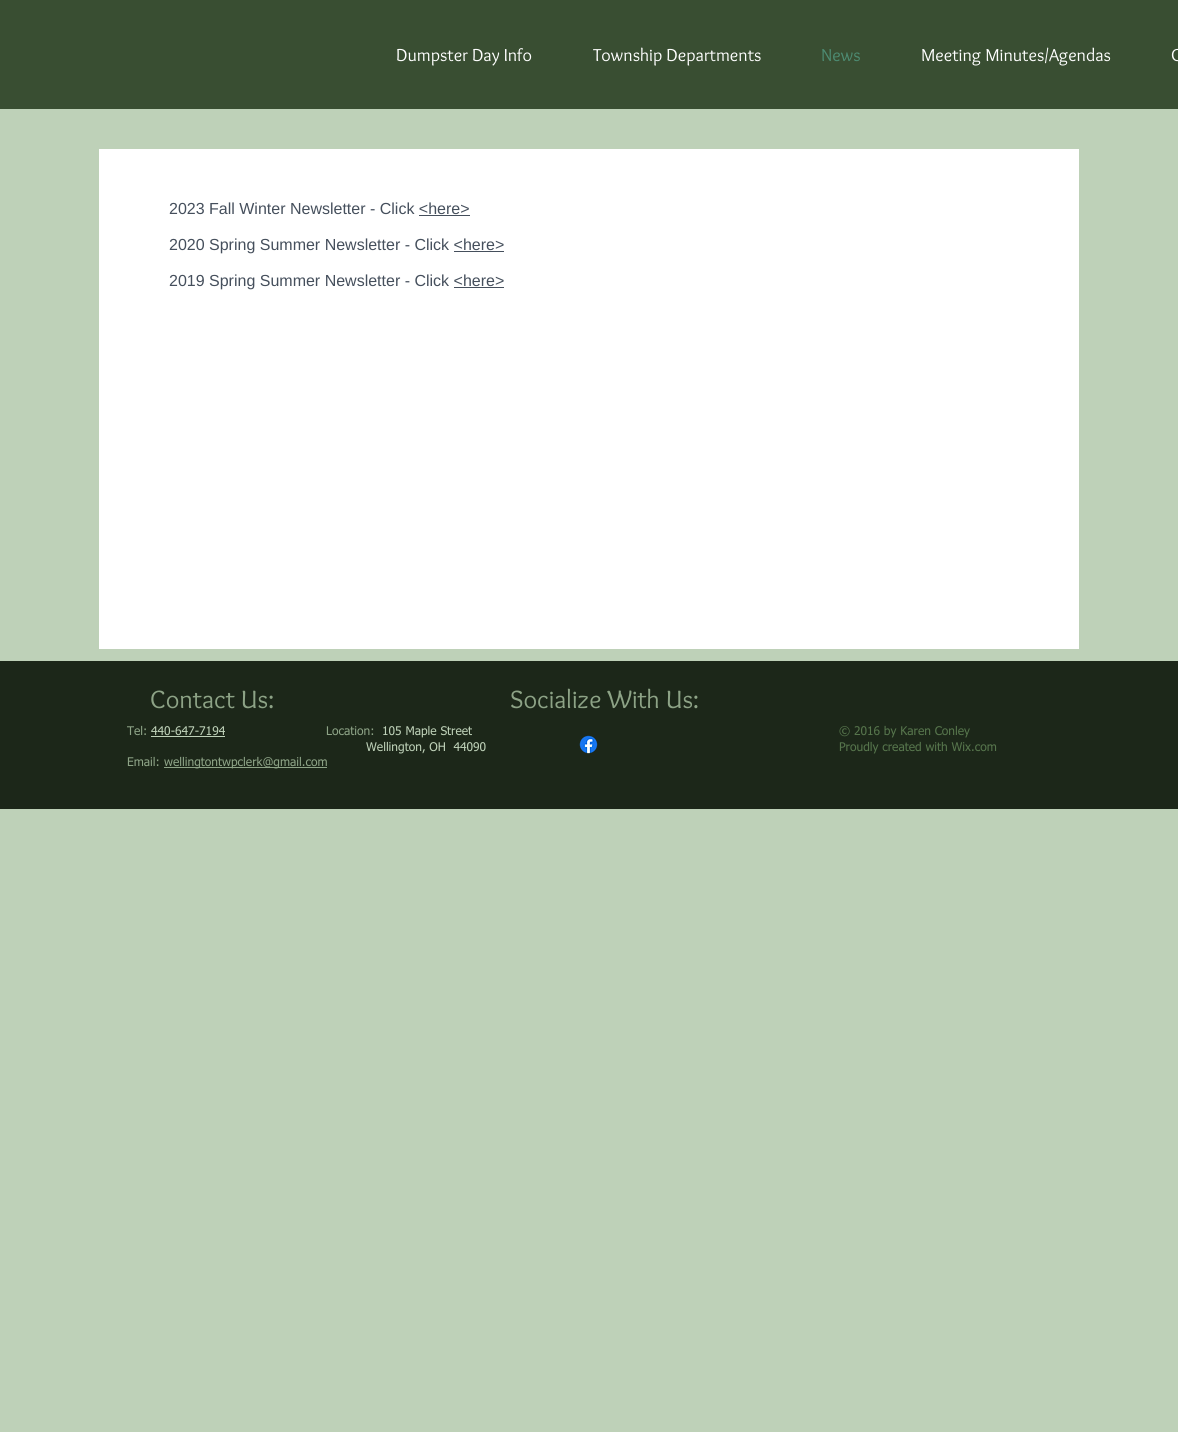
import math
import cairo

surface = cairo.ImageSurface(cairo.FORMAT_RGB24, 1178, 1432)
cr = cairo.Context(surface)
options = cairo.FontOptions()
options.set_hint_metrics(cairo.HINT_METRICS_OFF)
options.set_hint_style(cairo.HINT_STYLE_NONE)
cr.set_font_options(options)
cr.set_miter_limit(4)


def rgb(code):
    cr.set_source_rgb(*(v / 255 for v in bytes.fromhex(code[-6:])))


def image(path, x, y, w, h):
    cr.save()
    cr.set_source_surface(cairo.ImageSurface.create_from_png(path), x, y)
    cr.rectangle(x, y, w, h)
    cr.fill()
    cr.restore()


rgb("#bed1b8")
cr.paint()
for x, y, w, h, color in [
    (0, 0, 1178, 109, "#394e32"),
    (99, 149, 980, 500, "#ffffff"),
    (419, 215, 51, 1, "#454f5c"),
    (454, 251, 50, 1, "#454f5c"),
    (454, 287, 50, 1, "#454f5c"),
    (0, 661, 1178, 148, "#1c2719"),
    (151, 736, 74, 1, "#bed1b8"),
    (164, 767, 163, 1, "#8da386"),
]:
    rgb(color)
    cr.rectangle(x, y, w, h)
    cr.fill()
image("img/1.png", 579, 735, 19, 19)
cr.select_font_face("Overlock")
cr.set_font_size(18)
rgb("#ffffff")
cr.move_to(396, 61)
cr.show_text("Dumpster Day Info")
cr.move_to(593, 61)
cr.show_text("Township Departments")
rgb("#4d8c73")
cr.move_to(821, 61)
cr.show_text("News")
rgb("#ffffff")
cr.move_to(921, 61)
cr.show_text("Meeting Minutes/Agendas")
cr.move_to(1171, 61)
cr.show_text("C")
cr.select_font_face("Liberation Sans")
cr.set_font_size(16)
rgb("#454f5c")
for x, y, s in [
    (169, 214, "2023 Fall Winter Newsletter - Click <here>"),
    (169, 250, "2020 Spring Summer Newsletter - Click <here>"),
    (169, 286, "2019 Spring Summer Newsletter - Click <here>"),
]:
    cr.move_to(x, y)
    cr.show_text(s)
cr.select_font_face("Overlock")
cr.set_font_size(26)
rgb("#8da386")
cr.move_to(150, 708)
cr.show_text("Contact Us:")
cr.move_to(510, 708)
cr.show_text("Socialize With Us:")
cr.select_font_face("tahoma")
cr.set_font_size(12)
cr.move_to(127, 735)
cr.show_text("Tel:")
rgb("#bed1b8")
cr.move_to(151, 735)
cr.show_text("440-647-7194")
rgb("#8da386")
for x, y, s in [
    (127, 766, "Email:"),
    (164, 766, "wellingtontwpclerk@gmail.com"),
    (326, 735, "Location:"),
]:
    cr.move_to(x, y)
    cr.show_text(s)
rgb("#bed1b8")
cr.move_to(382, 735)
cr.show_text("105 Maple Street")
cr.move_to(366, 751)
cr.show_text("Wellington, OH  44090")
rgb("#56754c")
cr.move_to(839, 735)
cr.show_text("© 2016 by Karen Conley")
cr.move_to(839, 751)
cr.show_text("Proudly created with Wix.com")
surface.write_to_png("page.png")
